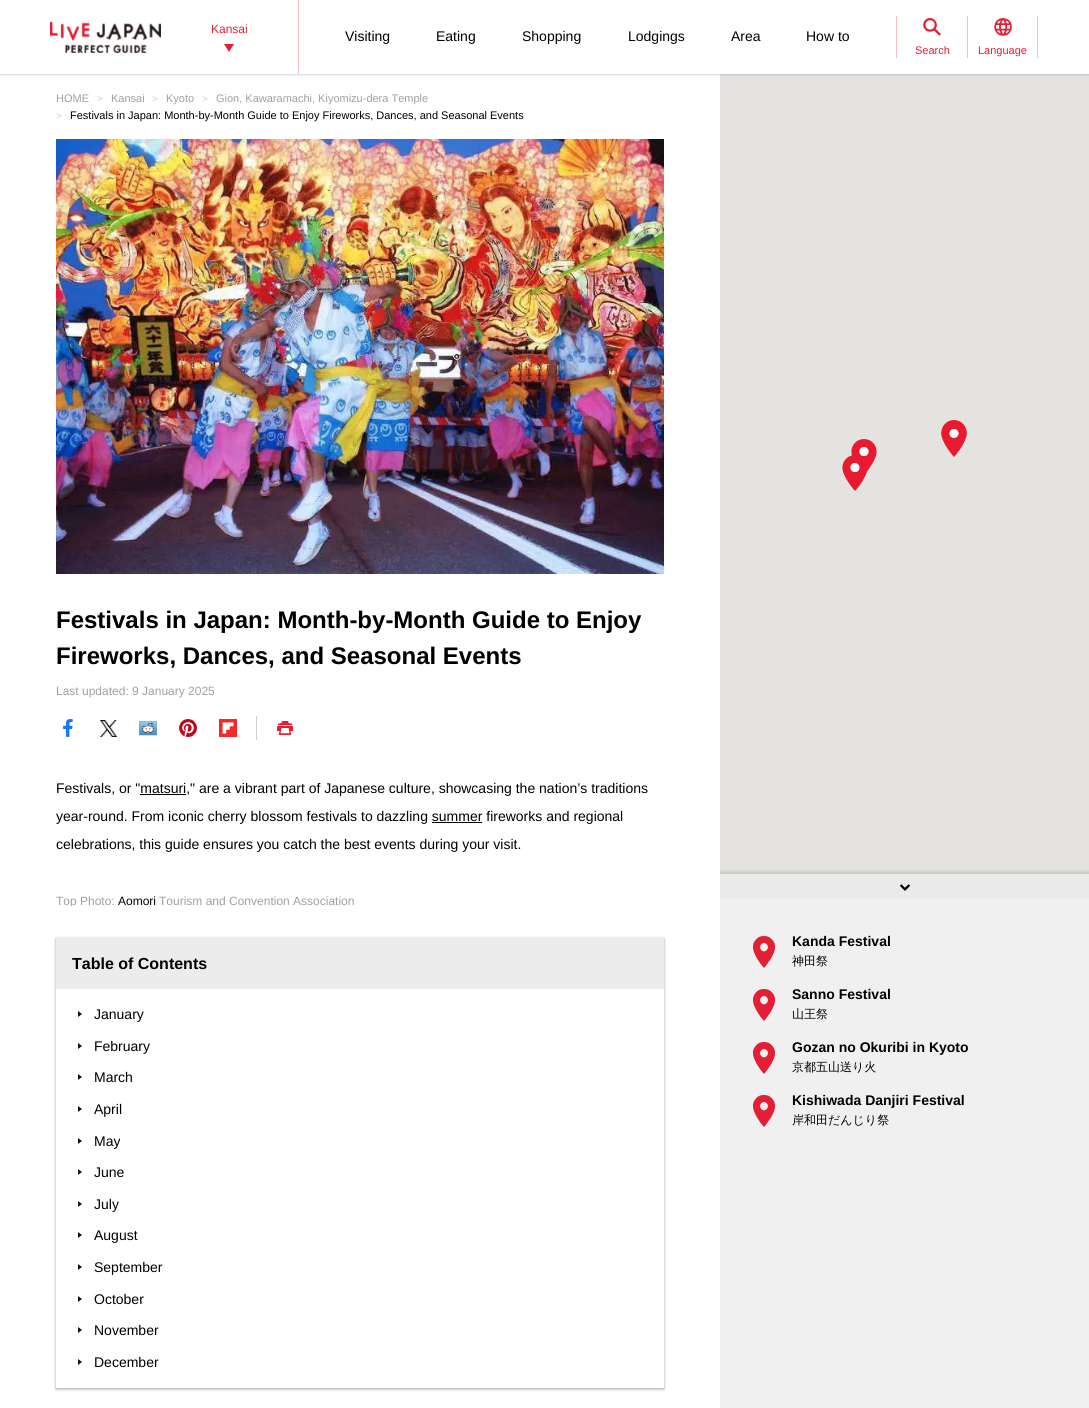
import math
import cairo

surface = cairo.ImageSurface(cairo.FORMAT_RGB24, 1089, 1408)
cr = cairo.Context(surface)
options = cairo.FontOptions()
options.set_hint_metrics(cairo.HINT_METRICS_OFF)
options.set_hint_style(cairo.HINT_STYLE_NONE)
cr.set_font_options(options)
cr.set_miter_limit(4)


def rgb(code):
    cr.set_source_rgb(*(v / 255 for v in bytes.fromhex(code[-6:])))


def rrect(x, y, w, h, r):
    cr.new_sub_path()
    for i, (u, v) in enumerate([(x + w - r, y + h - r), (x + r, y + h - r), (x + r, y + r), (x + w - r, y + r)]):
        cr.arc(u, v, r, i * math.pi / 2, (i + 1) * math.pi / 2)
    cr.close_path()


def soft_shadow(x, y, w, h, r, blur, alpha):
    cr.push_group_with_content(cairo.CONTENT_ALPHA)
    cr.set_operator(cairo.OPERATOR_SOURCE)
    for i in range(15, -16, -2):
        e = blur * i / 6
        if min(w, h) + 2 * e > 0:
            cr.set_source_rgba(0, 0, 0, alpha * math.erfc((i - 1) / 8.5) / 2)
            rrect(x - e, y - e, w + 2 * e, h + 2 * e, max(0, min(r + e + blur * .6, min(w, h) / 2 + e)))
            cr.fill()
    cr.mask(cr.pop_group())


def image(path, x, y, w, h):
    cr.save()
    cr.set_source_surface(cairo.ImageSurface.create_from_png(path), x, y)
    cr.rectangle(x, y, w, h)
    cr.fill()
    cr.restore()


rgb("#ffffff")
cr.paint()
rgb("#e5e3df")
cr.rectangle(720, 74, 369, 800)
cr.fill()
cr.save()
cr.rectangle(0, 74, 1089, 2)
cr.clip()
rgb("#323232")
soft_shadow(-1, -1, 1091, 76, 0, 1, 0.2)
cr.restore()
image("img/1.png", 50, 21, 111, 32)
rgb("#e41f35")
cr.new_path()
cr.move_to(224, 44)
cr.line_to(234, 44)
cr.line_to(229, 52)
cr.close_path()
cr.fill()
rgb("#f7bbc2")
cr.rectangle(298, 0, 1, 74)
cr.fill()
cr.rectangle(896, 16, 1, 42)
cr.fill()
image("img/2.png", 923, 18, 18, 18)
cr.rectangle(1037, 16, 1, 42)
cr.fill()
cr.rectangle(967, 16, 1, 42)
cr.fill()
image("img/3.png", 994, 18, 18, 18)
image("img/4.png", 56, 139, 608, 435)
rgb("#cfcfcf")
cr.rectangle(256, 716, 1, 24)
cr.fill()
image("img/5.png", 63, 719, 10, 18)
image("img/6.png", 100, 720, 17, 17)
image("img/7.png", 139, 721, 18, 15)
image("img/8.png", 179, 719, 18, 18)
image("img/9.png", 219, 719, 18, 18)
image("img/10.png", 277, 721, 16, 14)
rgb("#000000")
cr.rectangle(140, 794, 46, 1)
cr.fill()
cr.rectangle(432, 822, 50, 1)
cr.fill()
cr.save()
cr.set_fill_rule(cairo.FILL_RULE_EVEN_ODD)
cr.new_path()
cr.move_to(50, 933)
cr.line_to(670, 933)
cr.line_to(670, 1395)
cr.line_to(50, 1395)
cr.close_path()
cr.move_to(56, 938)
cr.line_to(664, 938)
cr.line_to(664, 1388)
cr.line_to(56, 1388)
cr.close_path()
cr.clip()
rgb("#121212")
soft_shadow(56, 939, 608, 450, 0, 1.5, 0.4)
cr.restore()
rgb("#ececec")
cr.rectangle(56, 938, 608, 51)
cr.fill()
rgb("#131313")
cr.new_path()
cr.move_to(78, 1017)
cr.line_to(78, 1011)
cr.line_to(82, 1014)
cr.close_path()
cr.fill()
cr.new_path()
cr.move_to(78, 1049)
cr.line_to(78, 1043)
cr.line_to(82, 1046)
cr.close_path()
cr.fill()
cr.new_path()
cr.move_to(78, 1080)
cr.line_to(78, 1074)
cr.line_to(82, 1077)
cr.close_path()
cr.fill()
cr.new_path()
cr.move_to(78, 1112)
cr.line_to(78, 1106)
cr.line_to(82, 1109)
cr.close_path()
cr.fill()
cr.new_path()
cr.move_to(78, 1144)
cr.line_to(78, 1138)
cr.line_to(82, 1141)
cr.close_path()
cr.fill()
cr.new_path()
cr.move_to(78, 1175)
cr.line_to(78, 1169)
cr.line_to(82, 1172)
cr.close_path()
cr.fill()
cr.new_path()
cr.move_to(78, 1207)
cr.line_to(78, 1201)
cr.line_to(82, 1204)
cr.close_path()
cr.fill()
cr.new_path()
cr.move_to(78, 1238)
cr.line_to(78, 1232)
cr.line_to(82, 1235)
cr.close_path()
cr.fill()
cr.new_path()
cr.move_to(78, 1270)
cr.line_to(78, 1264)
cr.line_to(82, 1267)
cr.close_path()
cr.fill()
cr.new_path()
cr.move_to(78, 1302)
cr.line_to(78, 1296)
cr.line_to(82, 1299)
cr.close_path()
cr.fill()
cr.new_path()
cr.move_to(78, 1333)
cr.line_to(78, 1327)
cr.line_to(82, 1330)
cr.close_path()
cr.fill()
cr.new_path()
cr.move_to(78, 1365)
cr.line_to(78, 1359)
cr.line_to(82, 1362)
cr.close_path()
cr.fill()
rgb("#f0f0f0")
cr.rectangle(720, 898, 369, 510)
cr.fill()
image("img/11.png", 941, 420, 26, 36)
image("img/12.png", 851, 439, 26, 34)
image("img/13.png", 941, 426, 26, 31)
image("img/14.png", 842, 455, 26, 36)
cr.save()
cr.rectangle(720, 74, 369, 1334)
cr.clip()
cr.rectangle(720, 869, 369, 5)
cr.clip()
rgb("#323232")
soft_shadow(718, 872, 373, 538, 0, 2, 0.2)
cr.restore()
rgb("#eaeaea")
cr.rectangle(720, 874, 369, 24)
cr.fill()
image("img/15.png", 899, 884, 11, 7)
image("img/16.png", 753, 936, 22, 32)
image("img/16.png", 753, 989, 22, 32)
image("img/16.png", 753, 1042, 22, 32)
image("img/16.png", 753, 1095, 22, 32)
cr.select_font_face("Liberation Sans")
cr.set_font_size(12)
rgb("#e41f35")
cr.move_to(211, 33)
cr.show_text("Kansai")
cr.set_font_size(14)
rgb("#000000")
for x, y, s in [
    (345, 41, "Visiting"),
    (436, 41, "Eating"),
    (522, 41, "Shopping"),
    (628, 41, "Lodgings"),
    (731, 41, "Area"),
    (806, 41, "How to"),
]:
    cr.move_to(x, y)
    cr.show_text(s)
cr.set_font_size(11)
rgb("#e41f35")
cr.move_to(915, 54)
cr.show_text("Search")
cr.move_to(978, 54)
cr.show_text("Language")
rgb("#a0a0a0")
cr.move_to(56, 102)
cr.show_text("HOME")
cr.set_font_size(10)
rgb("#cccccc")
cr.move_to(97, 102)
cr.show_text(">")
cr.set_font_size(11)
rgb("#a0a0a0")
cr.move_to(111, 102)
cr.show_text("Kansai")
cr.set_font_size(10)
rgb("#cccccc")
cr.move_to(152, 102)
cr.show_text(">")
cr.set_font_size(11)
rgb("#a0a0a0")
cr.move_to(166, 102)
cr.show_text("Kyoto")
cr.set_font_size(10)
rgb("#cccccc")
cr.move_to(202, 102)
cr.show_text(">")
cr.set_font_size(11)
rgb("#a0a0a0")
cr.move_to(216, 102)
cr.show_text("Gion, Kawaramachi, Kiyomizu-dera Temple")
cr.set_font_size(10)
rgb("#cccccc")
cr.move_to(56, 119)
cr.show_text(">")
cr.set_font_size(11)
rgb("#000000")
cr.move_to(70, 119)
cr.show_text("Festivals in Japan: Month-by-Month Guide to Enjoy Fireworks, Dances, and Seasonal Events")
cr.select_font_face("Liberation Sans", cairo.FONT_SLANT_NORMAL, cairo.FONT_WEIGHT_BOLD)
cr.set_font_size(24)
cr.move_to(56, 628)
cr.show_text("Festivals in Japan: Month-by-Month Guide to Enjoy")
cr.move_to(56, 664)
cr.show_text("Fireworks, Dances, and Seasonal Events")
cr.select_font_face("Liberation Sans")
cr.set_font_size(12)
rgb("#a0a0a0")
cr.move_to(56, 695)
cr.show_text("Last updated: 9 January 2025")
cr.set_font_size(14)
rgb("#000000")
for x, y, s in [
    (56, 793, "Festivals, or \"matsuri,\" are a vibrant part of Japanese culture, showcasing the nation’s traditions"),
    (56, 821, "year-round. From iconic cherry blossom festivals to dazzling summer fireworks and regional"),
    (56, 849, "celebrations, this guide ensures you catch the best events during your visit."),
]:
    cr.move_to(x, y)
    cr.show_text(s)
cr.set_font_size(12)
rgb("#a0a0a0")
cr.move_to(56, 905)
cr.show_text("Top Photo:")
rgb("#000000")
cr.move_to(118, 905)
cr.show_text("Aomori")
rgb("#a0a0a0")
cr.move_to(159, 905)
cr.show_text("Tourism and Convention Association")
rgb("#ffffff")
cr.rectangle(70, 906, 2, 2)
cr.fill()
cr.select_font_face("Liberation Sans", cairo.FONT_SLANT_NORMAL, cairo.FONT_WEIGHT_BOLD)
cr.set_font_size(16)
rgb("#000000")
cr.move_to(72, 969)
cr.show_text("Table of Contents")
cr.select_font_face("Liberation Sans")
cr.set_font_size(14)
for x, y, s in [
    (94, 1019, "January"),
    (94, 1051, "February"),
    (94, 1082, "March"),
    (94, 1114, "April"),
    (94, 1146, "May"),
    (94, 1177, "June"),
    (94, 1209, "July"),
    (94, 1240, "August"),
    (94, 1272, "September"),
    (94, 1304, "October"),
    (94, 1335, "November"),
    (94, 1367, "December"),
]:
    cr.move_to(x, y)
    cr.show_text(s)
cr.select_font_face("Liberation Sans", cairo.FONT_SLANT_NORMAL, cairo.FONT_WEIGHT_BOLD)
cr.move_to(792, 946)
cr.show_text("Kanda Festival")
cr.select_font_face("WenQuanYi Zen Hei Medium")
cr.set_font_size(12)
cr.move_to(792, 965)
cr.show_text("神田祭")
cr.select_font_face("Liberation Sans", cairo.FONT_SLANT_NORMAL, cairo.FONT_WEIGHT_BOLD)
cr.set_font_size(14)
cr.move_to(792, 999)
cr.show_text("Sanno Festival")
cr.select_font_face("WenQuanYi Zen Hei Medium")
cr.set_font_size(12)
cr.move_to(792, 1018)
cr.show_text("山王祭")
cr.select_font_face("Liberation Sans", cairo.FONT_SLANT_NORMAL, cairo.FONT_WEIGHT_BOLD)
cr.set_font_size(14)
cr.move_to(792, 1052)
cr.show_text("Gozan no Okuribi in Kyoto")
cr.select_font_face("WenQuanYi Zen Hei Medium")
cr.set_font_size(12)
cr.move_to(792, 1071)
cr.show_text("京都五山送り火")
cr.select_font_face("Liberation Sans", cairo.FONT_SLANT_NORMAL, cairo.FONT_WEIGHT_BOLD)
cr.set_font_size(14)
cr.move_to(792, 1105)
cr.show_text("Kishiwada Danjiri Festival")
cr.select_font_face("WenQuanYi Zen Hei Medium")
cr.set_font_size(12)
cr.move_to(792, 1124)
cr.show_text("岸和田だんじり祭")
surface.write_to_png("page.png")
